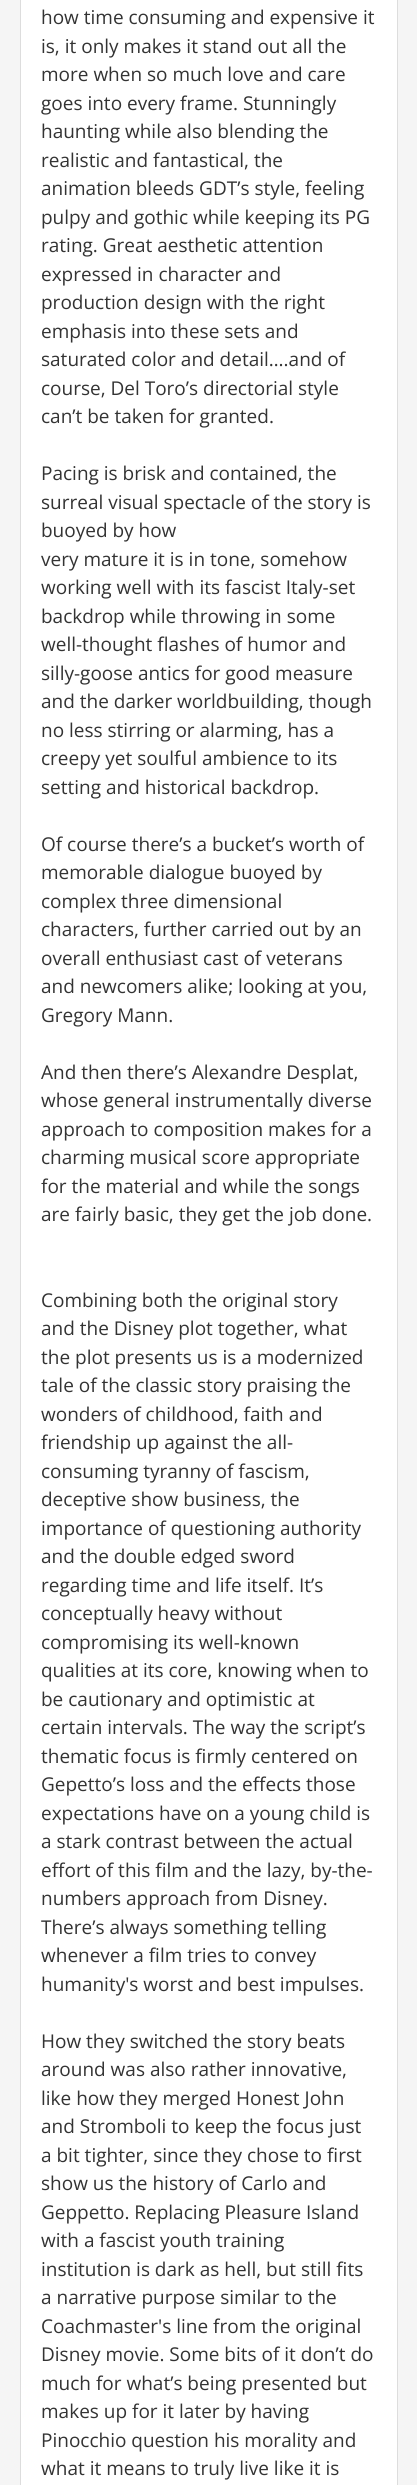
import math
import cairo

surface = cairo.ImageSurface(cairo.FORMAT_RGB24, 417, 2485)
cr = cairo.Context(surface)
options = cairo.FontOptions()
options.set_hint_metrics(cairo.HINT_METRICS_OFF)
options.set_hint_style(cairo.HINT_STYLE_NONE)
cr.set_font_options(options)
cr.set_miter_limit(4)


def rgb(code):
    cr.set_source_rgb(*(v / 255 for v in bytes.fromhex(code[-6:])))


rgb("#f5f5f5")
cr.paint()
rgb("#ffffff")
cr.rectangle(20.5, -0.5, 377, 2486)
cr.fill_preserve()
rgb("#dddddd")
cr.set_line_width(1)
cr.stroke()
cr.select_font_face("Open Sans")
cr.set_font_size(19)
rgb("#333333")
for x, y, s in [
    (41, 24, "how time consuming and expensive it"),
    (41, 53, "is, it only makes it stand out all the"),
    (41, 81, "more when so much love and care"),
    (41, 110, "goes into every frame. Stunningly"),
    (41, 138, "haunting while also blending the"),
    (41, 167, "realistic and fantastical, the"),
    (41, 195, "animation bleeds GDT’s style, feeling"),
    (41, 224, "pulpy and gothic while keeping its PG"),
    (41, 252, "rating. Great aesthetic attention"),
    (41, 281, "expressed in character and"),
    (41, 309, "production design with the right"),
    (41, 338, "emphasis into these sets and"),
    (41, 366, "saturated color and detail….and of"),
    (41, 395, "course, Del Toro’s directorial style"),
    (41, 423, "can’t be taken for granted."),
    (41, 480, "Pacing is brisk and contained, the"),
    (41, 509, "surreal visual spectacle of the story is"),
    (41, 537, "buoyed by how"),
    (41, 566, "very mature it is in tone, somehow"),
    (41, 594, "working well with its fascist Italy-set"),
    (41, 623, "backdrop while throwing in some"),
    (41, 651, "well-thought flashes of humor and"),
    (41, 680, "silly-goose antics for good measure"),
    (41, 708, "and the darker worldbuilding, though"),
    (41, 737, "no less stirring or alarming, has a"),
    (41, 765, "creepy yet soulful ambience to its"),
    (41, 794, "setting and historical backdrop."),
    (41, 851, "Of course there’s a bucket’s worth of"),
    (41, 879, "memorable dialogue buoyed by"),
    (41, 908, "complex three dimensional"),
    (41, 936, "characters, further carried out by an"),
    (41, 965, "overall enthusiast cast of veterans"),
    (41, 993, "and newcomers alike; looking at you,"),
    (41, 1022, "Gregory Mann."),
    (41, 1079, "And then there’s Alexandre Desplat,"),
    (41, 1107, "whose general instrumentally diverse"),
    (41, 1136, "approach to composition makes for a"),
    (41, 1164, "charming musical score appropriate"),
    (41, 1193, "for the material and while the songs"),
    (41, 1221, "are fairly basic, they get the job done."),
    (41, 1307, "Combining both the original story"),
    (41, 1335, "and the Disney plot together, what"),
    (41, 1364, "the plot presents us is a modernized"),
    (41, 1392, "tale of the classic story praising the"),
    (41, 1421, "wonders of childhood, faith and"),
    (41, 1449, "friendship up against the all-"),
    (41, 1478, "consuming tyranny of fascism,"),
    (41, 1506, "deceptive show business, the"),
    (41, 1535, "importance of questioning authority"),
    (41, 1563, "and the double edged sword"),
    (41, 1592, "regarding time and life itself. It’s"),
    (41, 1620, "conceptually heavy without"),
    (41, 1649, "compromising its well-known"),
    (41, 1677, "qualities at its core, knowing when to"),
    (41, 1706, "be cautionary and optimistic at"),
    (41, 1734, "certain intervals. The way the script’s"),
    (41, 1763, "thematic focus is firmly centered on"),
    (41, 1791, "Gepetto’s loss and the effects those"),
    (41, 1820, "expectations have on a young child is"),
    (41, 1848, "a stark contrast between the actual"),
    (41, 1877, "effort of this film and the lazy, by-the-"),
    (41, 1905, "numbers approach from Disney."),
    (41, 1934, "There’s always something telling"),
    (41, 1962, "whenever a film tries to convey"),
    (41, 1991, "humanity's worst and best impulses."),
    (41, 2048, "How they switched the story beats"),
    (41, 2076, "around was also rather innovative,"),
    (41, 2105, "like how they merged Honest John"),
    (41, 2133, "and Stromboli to keep the focus just"),
    (41, 2162, "a bit tighter, since they chose to first"),
    (41, 2190, "show us the history of Carlo and"),
    (41, 2219, "Geppetto. Replacing Pleasure Island"),
    (41, 2247, "with a fascist youth training"),
    (41, 2276, "institution is dark as hell, but still fits"),
    (41, 2304, "a narrative purpose similar to the"),
    (41, 2333, "Coachmaster's line from the original"),
    (41, 2361, "Disney movie. Some bits of it don’t do"),
    (41, 2390, "much for what’s being presented but"),
    (41, 2418, "makes up for it later by having"),
    (41, 2447, "Pinocchio question his morality and"),
    (41, 2475, "what it means to truly live like it is"),
]:
    cr.move_to(x, y)
    cr.show_text(s)
surface.write_to_png("page.png")
